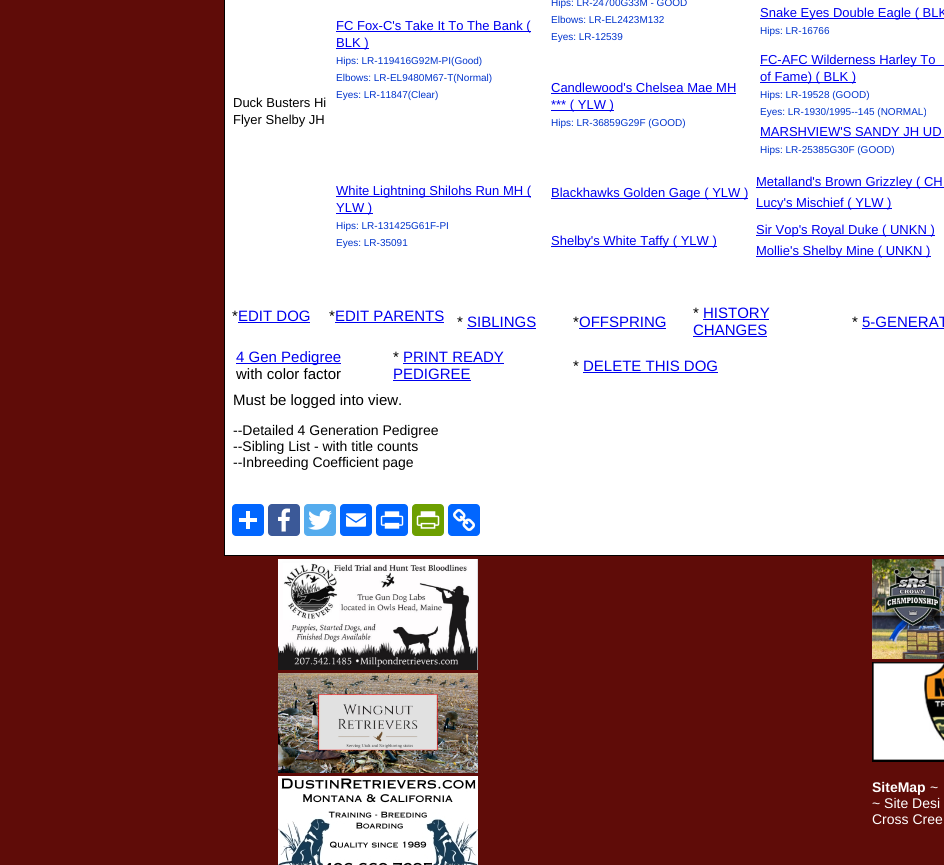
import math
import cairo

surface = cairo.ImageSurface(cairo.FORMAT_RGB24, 944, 865)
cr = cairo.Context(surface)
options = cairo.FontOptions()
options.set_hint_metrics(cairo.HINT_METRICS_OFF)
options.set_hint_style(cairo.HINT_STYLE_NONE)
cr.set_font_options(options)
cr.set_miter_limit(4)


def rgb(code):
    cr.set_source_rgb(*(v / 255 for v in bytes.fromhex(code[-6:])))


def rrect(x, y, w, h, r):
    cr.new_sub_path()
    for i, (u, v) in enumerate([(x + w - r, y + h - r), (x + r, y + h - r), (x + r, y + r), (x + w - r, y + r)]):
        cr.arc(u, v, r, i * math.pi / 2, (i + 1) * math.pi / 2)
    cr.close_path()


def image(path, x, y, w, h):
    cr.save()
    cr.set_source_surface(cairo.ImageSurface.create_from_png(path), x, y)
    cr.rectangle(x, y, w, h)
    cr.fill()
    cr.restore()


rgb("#5f0c08")
cr.paint()
rgb("#ffffff")
cr.rectangle(224.5, -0.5, 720, 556)
cr.fill_preserve()
rgb("#000000")
cr.set_line_width(1)
cr.stroke()
for x, y, w, h, color in [
    (336, 31, 195, 1, "#0000ee"),
    (336, 48, 33, 1, "#0000ee"),
    (760, 18, 184, 1, "#0000ee"),
    (551, 93, 185, 1, "#0000ee"),
    (551, 110, 63, 1, "#0000ee"),
    (760, 65, 184, 1, "#0000ee"),
    (760, 82, 96, 1, "#0000ee"),
    (760, 137, 184, 1, "#0000ee"),
    (336, 196, 195, 1, "#0000ee"),
    (336, 213, 37, 1, "#0000ee"),
    (551, 198, 197, 1, "#0000ee"),
    (756, 187, 188, 1, "#0000ee"),
    (756, 208, 136, 1, "#0000ee"),
    (551, 246, 166, 1, "#0000ee"),
    (756, 235, 179, 1, "#0000ee"),
    (756, 256, 175, 1, "#0000ee"),
    (238, 322, 72, 1, "#0000ee"),
    (335, 322, 109, 1, "#0000ee"),
    (467, 328, 69, 1, "#0000ee"),
    (579, 328, 87, 1, "#0000ee"),
    (703, 319, 66, 1, "#0000ee"),
    (693, 336, 74, 1, "#0000ee"),
    (862, 328, 82, 1, "#0000ee"),
    (236, 363, 105, 1, "#0000ee"),
    (403, 363, 101, 1, "#0000ee"),
    (393, 380, 78, 1, "#0000ee"),
    (583, 372, 135, 1, "#0000ee"),
]:
    rgb(color)
    cr.rectangle(x, y, w, h)
    cr.fill()
rgb("#0166ff")
rrect(232, 504, 32, 32, 4)
cr.fill()
rgb("#ffffff")
cr.rectangle(246, 511, 4, 18)
cr.fill()
cr.rectangle(239, 518, 18, 4)
cr.fill()
rgb("#3b5998")
rrect(268, 504, 32, 32, 4)
cr.fill()
image("img/1.png", 278, 508, 12, 24)
rgb("#55acee")
rrect(304, 504, 32, 32, 4)
cr.fill()
image("img/2.png", 308, 510, 24, 20)
rgb("#0166ff")
rrect(340, 504, 32, 32, 4)
cr.fill()
image("img/3.png", 346, 513, 20, 14)
rrect(376, 504, 32, 32, 4)
cr.fill()
image("img/4.png", 380, 511, 24, 18)
rgb("#6d9f00")
rrect(412, 504, 32, 32, 4)
cr.fill()
image("img/5.png", 416, 511, 24, 18)
rgb("#0166ff")
rrect(448, 504, 32, 32, 4)
cr.fill()
image("img/6.png", 453, 509, 22, 22)
image("img/7.png", 278, 559, 200, 111)
image("img/8.png", 278, 673, 200, 100)
image("img/9.png", 278, 776, 200, 89)
image("img/10.png", 872, 559, 72, 100)
image("img/11.png", 872, 662, 72, 100)
cr.select_font_face("Liberation Sans")
cr.set_font_size(13)
rgb("#0000ee")
cr.move_to(336, 30)
cr.show_text("FC Fox-C's Take It To The Bank (")
cr.move_to(336, 47)
cr.show_text("BLK )")
cr.set_font_size(10)
rgb("#0033cc")
for x, y, s in [
    (336, 64, "Hips: LR-119416G92M-PI(Good)"),
    (336, 81, "Elbows: LR-EL9480M67-T(Normal)"),
    (336, 98, "Eyes: LR-11847(Clear)"),
    (551, 6, "Hips: LR-24700G33M - GOOD"),
    (551, 23, "Elbows: LR-EL2423M132"),
    (551, 40, "Eyes: LR-12539"),
]:
    cr.move_to(x, y)
    cr.show_text(s)
cr.set_font_size(13)
rgb("#0000ee")
cr.move_to(760, 17)
cr.show_text("Snake Eyes Double Eagle ( BLK")
cr.set_font_size(10)
rgb("#0033cc")
cr.move_to(760, 34)
cr.show_text("Hips: LR-16766")
cr.set_font_size(13)
rgb("#0000ee")
cr.move_to(551, 92)
cr.show_text("Candlewood's Chelsea Mae MH")
cr.move_to(551, 109)
cr.show_text("*** ( YLW )")
cr.set_font_size(10)
rgb("#0033cc")
cr.move_to(551, 126)
cr.show_text("Hips: LR-36859G29F (GOOD)")
cr.set_font_size(13)
rgb("#0000ee")
cr.move_to(760, 64)
cr.show_text("FC-AFC Wilderness Harley To")
cr.move_to(760, 81)
cr.show_text("of Fame) ( BLK )")
cr.set_font_size(10)
rgb("#0033cc")
cr.move_to(760, 98)
cr.show_text("Hips: LR-19528 (GOOD)")
cr.move_to(760, 115)
cr.show_text("Eyes: LR-1930/1995--145 (NORMAL)")
cr.set_font_size(13)
rgb("#0000ee")
cr.move_to(760, 136)
cr.show_text("MARSHVIEW'S SANDY JH UD")
cr.set_font_size(10)
rgb("#0033cc")
cr.move_to(760, 153)
cr.show_text("Hips: LR-25385G30F (GOOD)")
cr.set_font_size(13)
rgb("#000000")
cr.move_to(233, 107)
cr.show_text("Duck Busters Hi")
cr.move_to(233, 124)
cr.show_text("Flyer Shelby JH")
rgb("#0000ee")
cr.move_to(336, 195)
cr.show_text("White Lightning Shilohs Run MH (")
cr.move_to(336, 212)
cr.show_text("YLW )")
cr.set_font_size(10)
rgb("#0033cc")
cr.move_to(336, 229)
cr.show_text("Hips: LR-131425G61F-PI")
cr.move_to(336, 246)
cr.show_text("Eyes: LR-35091")
cr.set_font_size(13)
rgb("#0000ee")
for x, y, s in [
    (551, 197, "Blackhawks Golden Gage ( YLW )"),
    (756, 186, "Metalland's Brown Grizzley ( CH"),
    (756, 207, "Lucy's Mischief ( YLW )"),
    (551, 245, "Shelby's White Taffy ( YLW )"),
    (756, 234, "Sir Vop's Royal Duke ( UNKN )"),
    (756, 255, "Mollie's Shelby Mine ( UNKN )"),
]:
    cr.move_to(x, y)
    cr.show_text(s)
cr.set_font_size(15)
rgb("#000000")
cr.move_to(232, 321)
cr.show_text("*")
rgb("#0000ee")
cr.move_to(238, 321)
cr.show_text("EDIT DOG")
rgb("#000000")
cr.move_to(329, 321)
cr.show_text("*")
rgb("#0000ee")
cr.move_to(335, 321)
cr.show_text("EDIT PARENTS")
rgb("#000000")
cr.move_to(457, 327)
cr.show_text("*")
rgb("#0000ee")
cr.move_to(467, 327)
cr.show_text("SIBLINGS")
rgb("#000000")
cr.move_to(573, 327)
cr.show_text("*")
rgb("#0000ee")
cr.move_to(579, 327)
cr.show_text("OFFSPRING")
rgb("#000000")
cr.move_to(693, 318)
cr.show_text("*")
rgb("#0000ee")
cr.move_to(703, 318)
cr.show_text("HISTORY")
cr.move_to(693, 335)
cr.show_text("CHANGES")
rgb("#000000")
cr.move_to(852, 327)
cr.show_text("*")
rgb("#0000ee")
cr.move_to(862, 327)
cr.show_text("5-GENERAT")
cr.move_to(236, 362)
cr.show_text("4 Gen Pedigree")
rgb("#000000")
cr.move_to(236, 379)
cr.show_text("with color factor")
cr.move_to(393, 362)
cr.show_text("*")
rgb("#0000ee")
cr.move_to(403, 362)
cr.show_text("PRINT READY")
cr.move_to(393, 379)
cr.show_text("PEDIGREE")
rgb("#000000")
cr.move_to(573, 371)
cr.show_text("*")
rgb("#0000ee")
cr.move_to(583, 371)
cr.show_text("DELETE THIS DOG")
rgb("#000000")
cr.move_to(233, 405)
cr.show_text("Must be logged into view.")
cr.set_font_size(14)
for x, y, s in [
    (233, 435, "--Detailed 4 Generation Pedigree"),
    (233, 451, "--Sibling List - with title counts"),
    (233, 467, "--Inbreeding Coefficient page"),
]:
    cr.move_to(x, y)
    cr.show_text(s)
cr.select_font_face("Liberation Sans", cairo.FONT_SLANT_NORMAL, cairo.FONT_WEIGHT_BOLD)
rgb("#ffffff")
cr.move_to(872, 792)
cr.show_text("SiteMap")
cr.select_font_face("Liberation Sans")
for x, y, s in [
    (930, 792, "~"),
    (872, 808, "~ Site Desi"),
    (872, 824, "Cross Cree"),
]:
    cr.move_to(x, y)
    cr.show_text(s)
surface.write_to_png("page.png")
